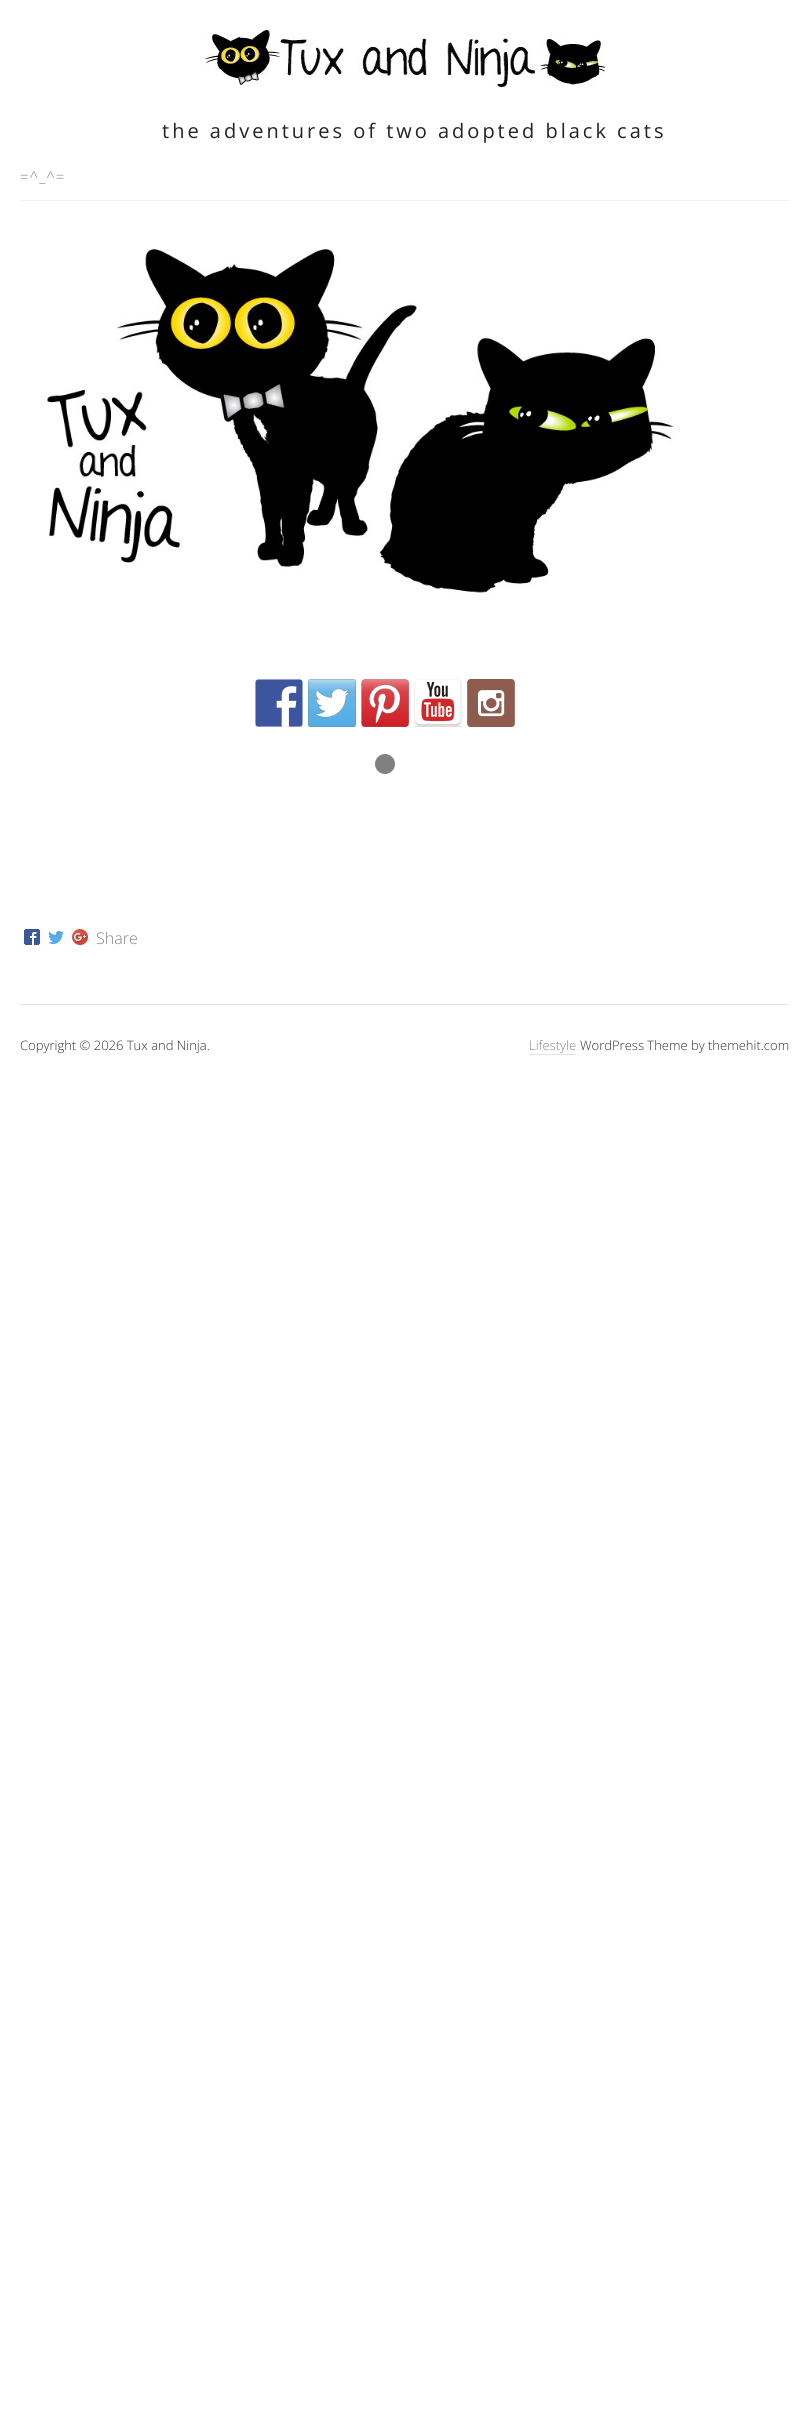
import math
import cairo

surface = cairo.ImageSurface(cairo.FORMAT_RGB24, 809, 2423)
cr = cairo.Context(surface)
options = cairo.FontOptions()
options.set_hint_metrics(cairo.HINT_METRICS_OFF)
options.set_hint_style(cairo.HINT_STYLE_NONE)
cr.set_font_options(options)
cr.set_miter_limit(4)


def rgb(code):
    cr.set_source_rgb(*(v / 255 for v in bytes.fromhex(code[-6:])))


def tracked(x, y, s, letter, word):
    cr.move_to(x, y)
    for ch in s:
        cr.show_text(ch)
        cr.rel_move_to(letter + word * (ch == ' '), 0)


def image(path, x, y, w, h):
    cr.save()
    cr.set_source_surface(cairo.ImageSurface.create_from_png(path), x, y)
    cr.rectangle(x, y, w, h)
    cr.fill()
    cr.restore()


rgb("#ffffff")
cr.paint()
image("img/1.png", 205, 30, 400, 57)
rgb("#f2f2f2")
cr.rectangle(20, 200, 769, 1)
cr.fill()
image("img/2.png", 47, 248, 627, 346)
rgb("#e3e3e3")
cr.rectangle(255, 726, 48, 1)
cr.fill()
image("img/3.png", 255, 679, 48, 48)
cr.rectangle(308, 726, 48, 1)
cr.fill()
image("img/4.png", 308, 679, 48, 48)
cr.rectangle(361, 726, 48, 1)
cr.fill()
image("img/5.png", 361, 679, 48, 48)
cr.rectangle(414, 726, 48, 1)
cr.fill()
image("img/6.png", 414, 679, 48, 48)
cr.rectangle(467, 726, 48, 1)
cr.fill()
image("img/7.png", 467, 679, 48, 48)
rgb("#808080")
cr.arc(385, 764, 10, 0, 2 * math.pi)
cr.fill()
image("img/8.png", 24, 929, 16, 16)
image("img/9.png", 48, 931, 16, 13)
image("img/10.png", 72, 929, 16, 16)
rgb("#e5e5e5")
cr.rectangle(20, 1004, 769, 1)
cr.fill()
rgb("#e3e3e3")
cr.rectangle(529, 1054, 47, 1)
cr.fill()
cr.select_font_face("Open Sans")
cr.set_font_size(20)
rgb("#232323")
tracked(162, 138, "the adventures of two adopted black cats", 3, 0)
cr.select_font_face("Open Sans Light")
cr.set_font_size(15)
rgb("#858585")
tracked(20, 182, "=^_^=", 1, 0)
cr.set_font_size(16)
cr.move_to(96, 944)
cr.show_text("Share")
cr.set_font_size(13)
rgb("#333333")
cr.move_to(20, 1050)
cr.show_text("Copyright © 2026 Tux and Ninja.")
rgb("#858585")
cr.move_to(529, 1050)
cr.show_text("Lifestyle")
rgb("#333333")
cr.move_to(580, 1050)
cr.show_text("WordPress Theme by themehit.com")
surface.write_to_png("page.png")
